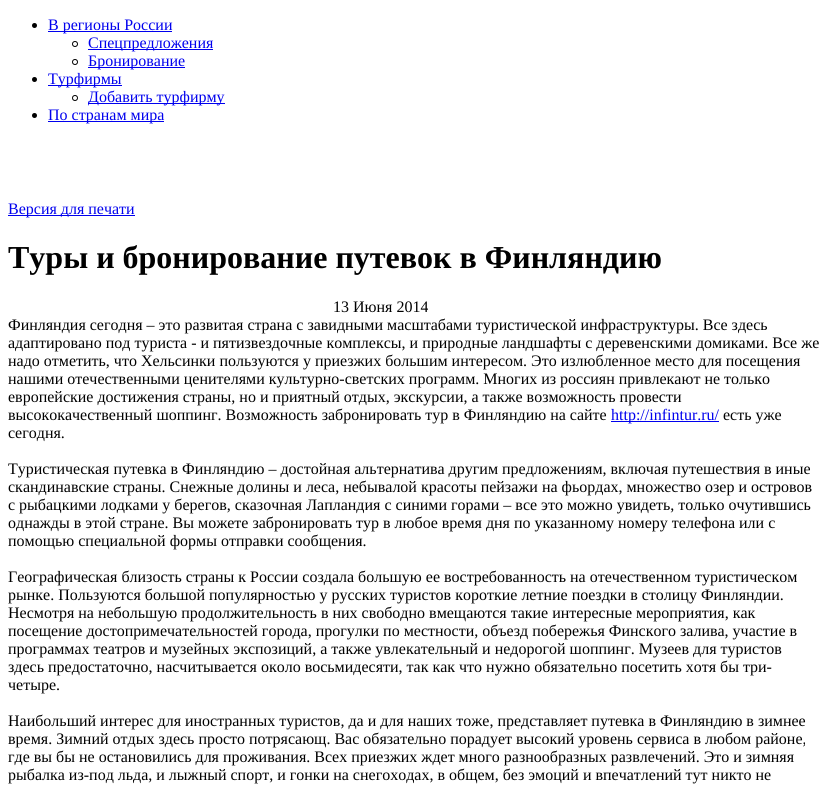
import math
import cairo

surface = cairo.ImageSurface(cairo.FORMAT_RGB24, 828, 786)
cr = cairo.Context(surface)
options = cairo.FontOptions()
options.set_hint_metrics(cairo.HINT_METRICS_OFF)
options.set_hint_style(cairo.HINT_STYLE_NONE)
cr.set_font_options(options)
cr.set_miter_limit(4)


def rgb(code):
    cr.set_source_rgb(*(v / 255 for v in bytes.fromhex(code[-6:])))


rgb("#ffffff")
cr.paint()
rgb("#000000")
cr.arc(34.5, 25.5, 2.5, 0, 2 * math.pi)
cr.fill()
rgb("#0000ee")
cr.rectangle(48, 31, 124, 1)
cr.fill()
cr.arc(75, 44, 2.5, 0, 2 * math.pi)
rgb("#000000")
cr.set_line_width(1)
cr.stroke()
rgb("#0000ee")
cr.rectangle(88, 49, 125, 1)
cr.fill()
cr.arc(75, 62, 2.5, 0, 2 * math.pi)
rgb("#000000")
cr.stroke()
rgb("#0000ee")
cr.rectangle(88, 67, 97, 1)
cr.fill()
rgb("#000000")
cr.arc(34.5, 79.5, 2.5, 0, 2 * math.pi)
cr.fill()
rgb("#0000ee")
cr.rectangle(48, 85, 74, 1)
cr.fill()
cr.arc(75, 98, 2.5, 0, 2 * math.pi)
rgb("#000000")
cr.stroke()
rgb("#0000ee")
cr.rectangle(88, 103, 137, 1)
cr.fill()
rgb("#000000")
cr.arc(34.5, 115.5, 2.5, 0, 2 * math.pi)
cr.fill()
for x, y, w, h, color in [
    (48, 121, 116, 1, "#0000ee"),
    (8, 215, 127, 1, "#0000ee"),
    (611, 421, 108, 1, "#0000ee"),
]:
    rgb(color)
    cr.rectangle(x, y, w, h)
    cr.fill()
cr.select_font_face("Liberation Serif")
cr.set_font_size(16)
for x, y, s in [
    (48, 30, "В регионы России"),
    (88, 48, "Спецпредложения"),
    (88, 66, "Бронирование"),
    (48, 84, "Турфирмы"),
    (88, 102, "Добавить турфирму"),
    (48, 120, "По странам мира"),
    (8, 214, "Версия для печати"),
]:
    cr.move_to(x, y)
    cr.show_text(s)
cr.select_font_face("Liberation Serif", cairo.FONT_SLANT_NORMAL, cairo.FONT_WEIGHT_BOLD)
cr.set_font_size(32)
rgb("#000000")
cr.move_to(8, 268)
cr.show_text("Туры и бронирование путевок в Финляндию")
cr.select_font_face("Liberation Serif")
cr.set_font_size(16)
for x, y, s in [
    (333, 312, "13 Июня 2014"),
    (8, 330, "Финляндия сегодня – это развитая страна с завидными масштабами туристической инфраструктуры. Все здесь"),
    (8, 348, "адаптировано под туриста - и пятизвездочные комплексы, и природные ландшафты с деревенскими домиками. Все же"),
    (8, 366, "надо отметить, что Хельсинки пользуются у приезжих большим интересом. Это излюбленное место для посещения"),
    (8, 384, "нашими отечественными ценителями культурно-светских программ. Многих из россиян привлекают не только"),
    (8, 402, "европейские достижения страны, но и приятный отдых, экскурсии, а также возможность провести"),
    (8, 420, "высококачественный шоппинг. Возможность забронировать тур в Финляндию на сайте"),
]:
    cr.move_to(x, y)
    cr.show_text(s)
rgb("#0000ee")
cr.move_to(611, 420)
cr.show_text("http://infintur.ru/")
rgb("#000000")
for x, y, s in [
    (723, 420, "есть уже"),
    (8, 438, "сегодня."),
    (8, 474, "Туристическая путевка в Финляндию – достойная альтернатива другим предложениям, включая путешествия в иные"),
    (8, 492, "скандинавские страны. Снежные долины и леса, небывалой красоты пейзажи на фьордах, множество озер и островов"),
    (8, 510, "с рыбацкими лодками у берегов, сказочная Лапландия с синими горами – все это можно увидеть, только очутившись"),
    (8, 528, "однажды в этой стране. Вы можете забронировать тур в любое время дня по указанному номеру телефона или с"),
    (8, 546, "помощью специальной формы отправки сообщения."),
    (8, 582, "Географическая близость страны к России создала большую ее востребованность на отечественном туристическом"),
    (8, 600, "рынке. Пользуются большой популярностью у русских туристов короткие летние поездки в столицу Финляндии."),
    (8, 618, "Несмотря на небольшую продолжительность в них свободно вмещаются такие интересные мероприятия, как"),
    (8, 636, "посещение достопримечательностей города, прогулки по местности, объезд побережья Финского залива, участие в"),
    (8, 654, "программах театров и музейных экспозиций, а также увлекательный и недорогой шоппинг. Музеев для туристов"),
    (8, 672, "здесь предостаточно, насчитывается около восьмидесяти, так как что нужно обязательно посетить хотя бы три-"),
    (8, 690, "четыре."),
    (8, 726, "Наибольший интерес для иностранных туристов, да и для наших тоже, представляет путевка в Финляндию в зимнее"),
    (8, 744, "время. Зимний отдых здесь просто потрясающ. Вас обязательно порадует высокий уровень сервиса в любом районе,"),
    (8, 762, "где вы бы не остановились для проживания. Всех приезжих ждет много разнообразных развлечений. Это и зимняя"),
    (8, 780, "рыбалка из-под льда, и лыжный спорт, и гонки на снегоходах, в общем, без эмоций и впечатлений тут никто не"),
]:
    cr.move_to(x, y)
    cr.show_text(s)
surface.write_to_png("page.png")
